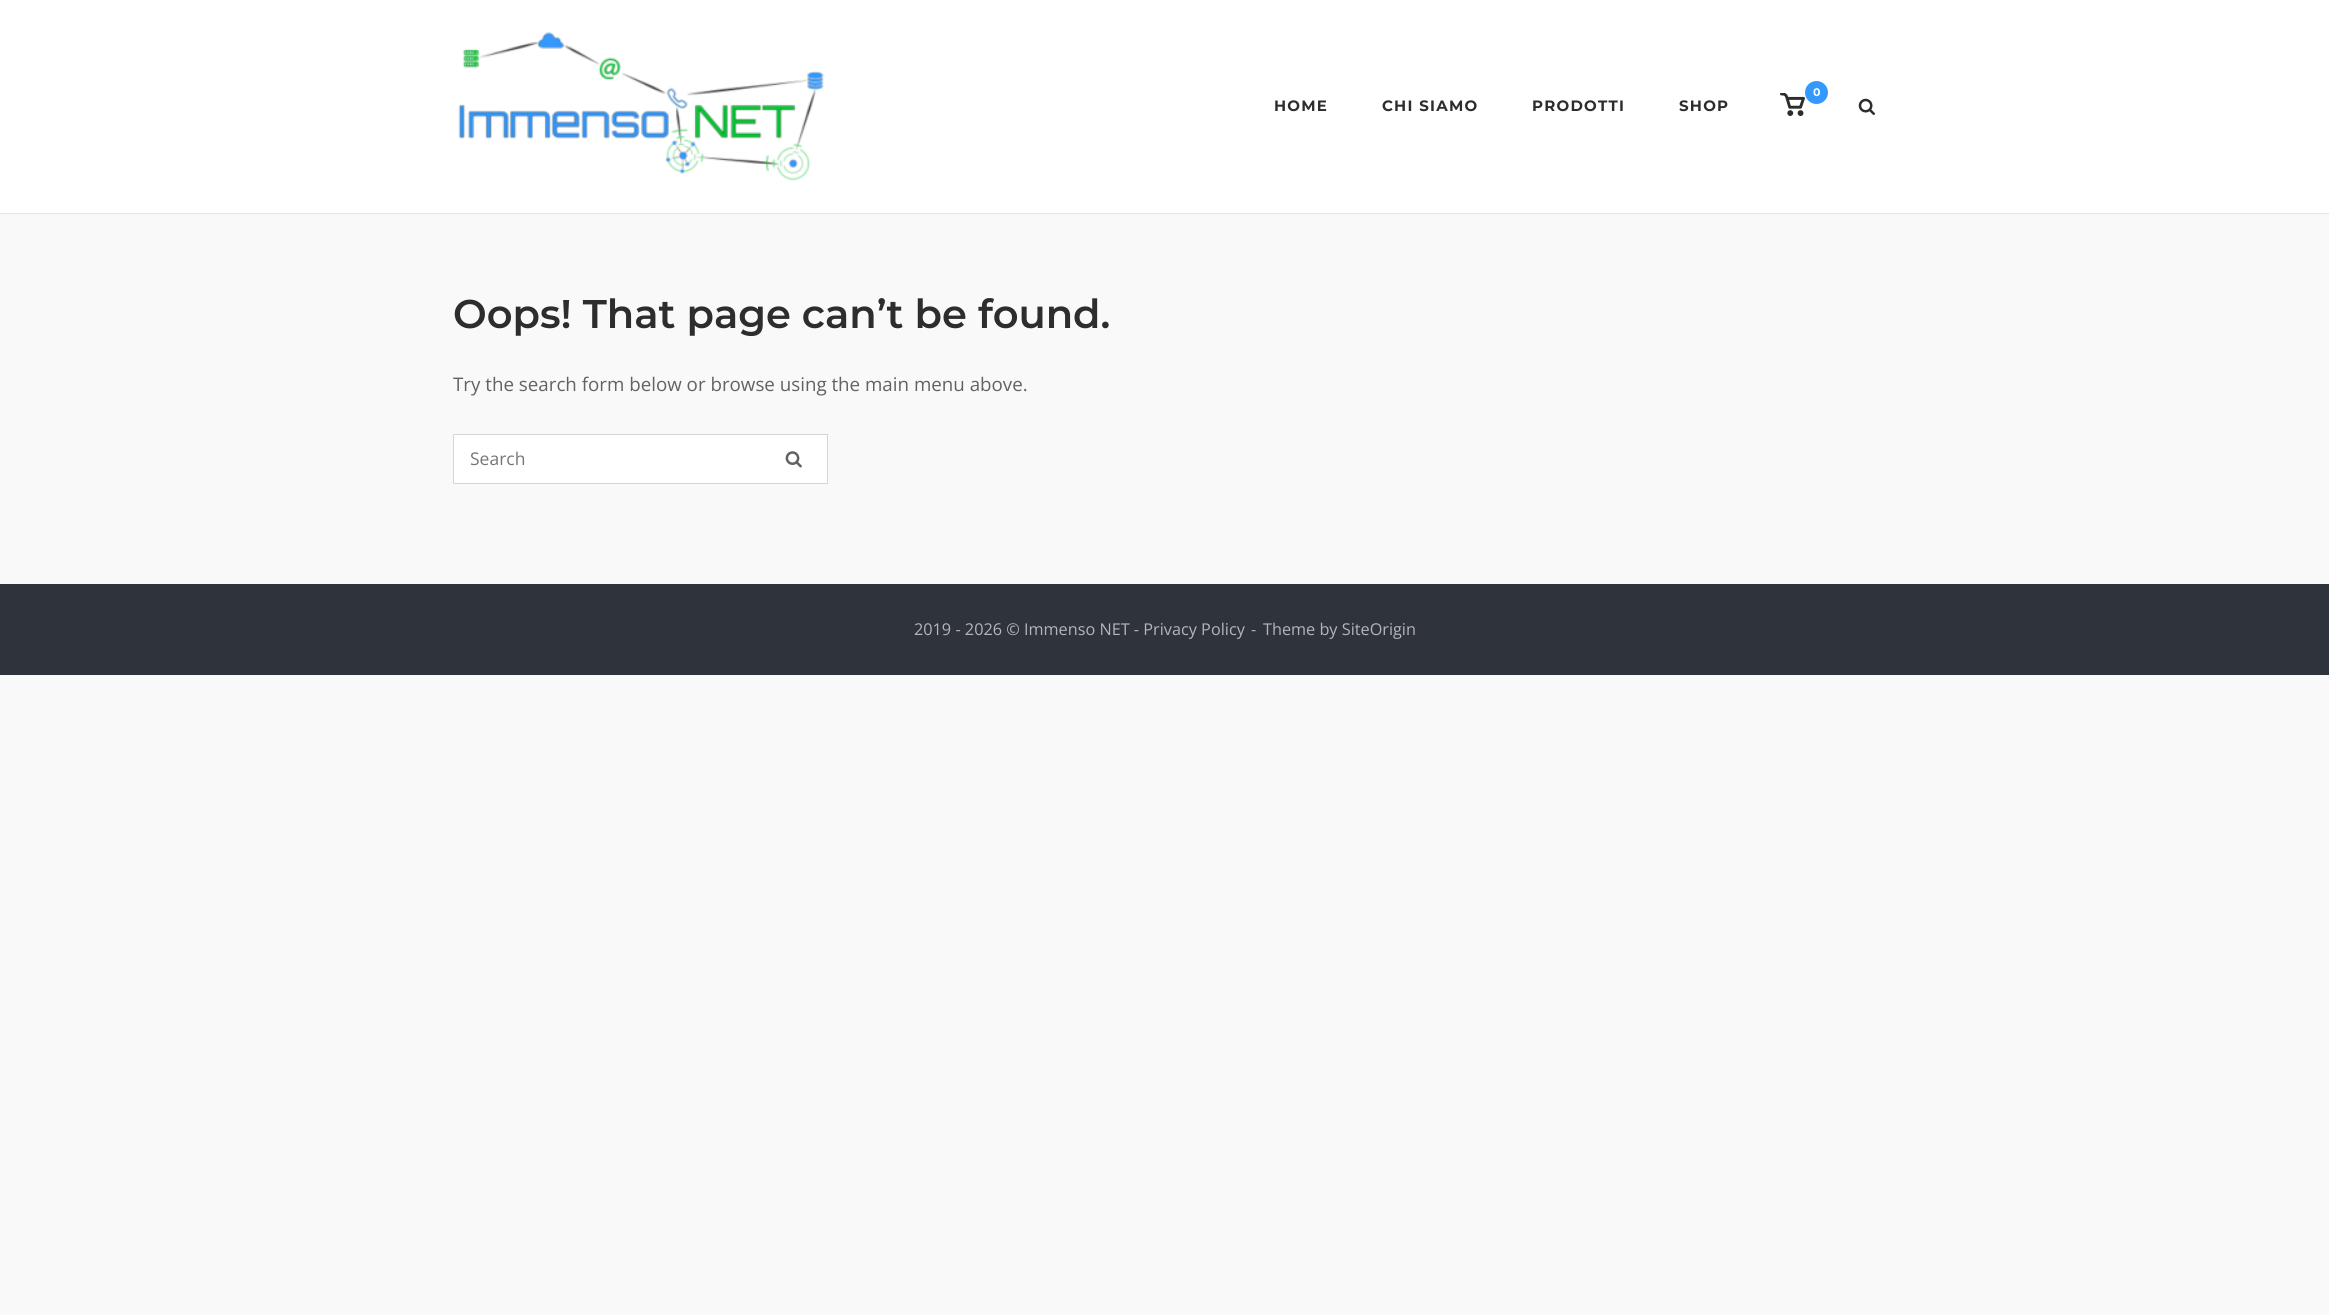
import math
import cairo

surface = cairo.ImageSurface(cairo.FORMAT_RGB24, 2329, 1315)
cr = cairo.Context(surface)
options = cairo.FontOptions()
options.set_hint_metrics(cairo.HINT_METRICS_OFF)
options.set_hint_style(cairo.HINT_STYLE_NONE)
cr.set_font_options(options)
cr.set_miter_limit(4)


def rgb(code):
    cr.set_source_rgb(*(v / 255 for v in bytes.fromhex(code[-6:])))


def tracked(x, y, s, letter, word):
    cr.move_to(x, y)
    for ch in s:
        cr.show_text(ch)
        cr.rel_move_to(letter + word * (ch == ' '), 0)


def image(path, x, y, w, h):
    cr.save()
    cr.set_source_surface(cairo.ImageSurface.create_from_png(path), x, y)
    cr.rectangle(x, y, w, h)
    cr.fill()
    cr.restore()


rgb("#f9f9f9")
cr.paint()
rgb("#ffffff")
cr.rectangle(0, 0, 2329, 213)
cr.fill()
rgb("#e6e6e6")
cr.rectangle(0, 213, 2329, 1)
cr.fill()
image("img/1.png", 458, 32, 366, 149)
image("img/2.png", 1780, 93, 25, 23)
rgb("#3399ff")
cr.arc(1816.5, 92.5, 11.5, 0, 2 * math.pi)
cr.fill()
image("img/3.png", 1858, 98, 17, 17)
rgb("#ffffff")
cr.rectangle(453.5, 434.5, 374, 49)
cr.fill_preserve()
rgb("#d6d6d6")
cr.set_line_width(1)
cr.stroke()
image("img/4.png", 785, 451, 17, 17)
rgb("#2f333b")
cr.rectangle(0, 584, 2329, 91)
cr.fill()
cr.select_font_face("Montserrat", cairo.FONT_SLANT_NORMAL, cairo.FONT_WEIGHT_BOLD)
cr.set_font_size(11)
rgb("#ffffff")
tracked(1813, 96, "0", 1.25, 0)
cr.set_font_size(15)
rgb("#2d2d2d")
for x, y, s in [
    (1274, 111, "HOME"),
    (1382, 111, "CHI SIAMO"),
    (1532, 111, "PRODOTTI"),
    (1679, 111, "SHOP"),
]:
    tracked(x, y, s, 1.25, 0)
cr.select_font_face("Montserrat SemiBold")
cr.set_font_size(40)
cr.move_to(453, 328)
cr.show_text("Oops! That page can’t be found.")
cr.select_font_face("Open Sans")
cr.set_font_size(18.75)
rgb("#626262")
cr.move_to(453, 391)
cr.show_text("Try the search form below or browse using the main menu above.")
cr.set_font_size(17.5)
rgb("#757575")
cr.move_to(470, 465)
cr.show_text("Search")
cr.set_font_size(16.25)
rgb("#b4b5b8")
for x, y, s in [
    (914, 635, "2019 - 2026 © Immenso NET - Privacy Policy"),
    (1251, 635, "-"),
    (1263, 635, "Theme by SiteOrigin"),
]:
    cr.move_to(x, y)
    cr.show_text(s)
surface.write_to_png("page.png")
